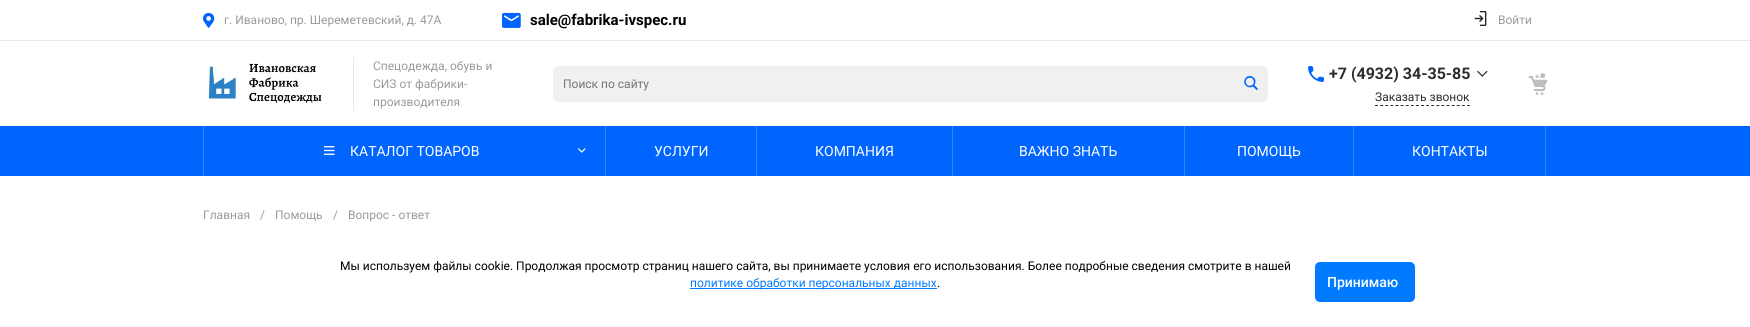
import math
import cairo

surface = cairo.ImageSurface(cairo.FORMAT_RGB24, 1750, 327)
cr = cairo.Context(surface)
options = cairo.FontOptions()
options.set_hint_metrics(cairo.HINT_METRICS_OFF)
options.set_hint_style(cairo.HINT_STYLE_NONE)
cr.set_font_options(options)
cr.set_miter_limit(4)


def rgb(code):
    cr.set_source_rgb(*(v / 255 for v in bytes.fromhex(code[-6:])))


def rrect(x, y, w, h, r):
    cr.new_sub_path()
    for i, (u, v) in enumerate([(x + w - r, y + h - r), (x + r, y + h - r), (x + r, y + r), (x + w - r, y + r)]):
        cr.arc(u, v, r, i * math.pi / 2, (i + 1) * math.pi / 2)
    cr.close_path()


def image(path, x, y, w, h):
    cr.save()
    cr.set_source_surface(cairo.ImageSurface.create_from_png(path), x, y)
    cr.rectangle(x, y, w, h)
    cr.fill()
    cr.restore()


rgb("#ffffff")
cr.paint()
rgb("#e8e8e8")
cr.rectangle(0, 40, 1750, 1)
cr.fill()
image("img/1.png", 203, 12, 12, 16)
image("img/2.png", 502, 12, 19, 16)
image("img/3.png", 1474, 11, 13, 15)
image("img/4.png", 207, 63, 115, 40)
cr.rectangle(353, 57, 1, 54)
cr.fill()
rgb("#f0f0f0")
rrect(553, 66, 715, 36, 5)
cr.fill()
image("img/5.png", 1244, 76, 14, 14)
image("img/6.png", 1308, 66, 16, 16)
image("img/7.png", 1477, 70, 11, 7)
cr.new_path()
cr.move_to(1375, 105.5)
cr.line_to(1470, 105.5)
rgb("#2d2d2d")
cr.set_line_width(1)
cr.set_dash([3, 2.11])
cr.stroke()
image("img/8.png", 1528, 73, 20, 22)
for x, y, w, h, color in [
    (0, 126, 1750, 50, "#0065ff"),
    (605, 126, 1, 50, "#3384ff"),
    (203, 126, 1, 50, "#3384ff"),
]:
    rgb(color)
    cr.rectangle(x, y, w, h)
    cr.fill()
image("img/9.png", 324, 146, 11, 9)
image("img/10.png", 578, 148, 8, 5)
for x, y, w, h, color in [
    (756, 126, 1, 50, "#3384ff"),
    (952, 126, 1, 50, "#3384ff"),
    (1184, 126, 1, 50, "#3384ff"),
    (1353, 126, 1, 50, "#3384ff"),
    (1545, 126, 1, 50, "#3384ff"),
    (690, 288, 247, 1, "#007bff"),
]:
    rgb(color)
    cr.rectangle(x, y, w, h)
    cr.fill()
rrect(1315, 262, 100, 40, 5)
cr.fill()
cr.select_font_face("Roboto")
cr.set_font_size(12)
rgb("#9a9a9a")
cr.move_to(224, 24)
cr.show_text("г. Иваново, пр. Шереметевский, д. 47А")
cr.select_font_face("Roboto", cairo.FONT_SLANT_NORMAL, cairo.FONT_WEIGHT_BOLD)
cr.set_font_size(15)
rgb("#000000")
cr.move_to(530, 25)
cr.show_text("sale@fabrika-ivspec.ru")
cr.select_font_face("Roboto")
cr.set_font_size(12)
rgb("#9a9a9a")
for x, y, s in [
    (1498, 24, "Войти"),
    (373, 70, "Спецодежда, обувь и"),
    (373, 88, "СИЗ от фабрики-"),
    (373, 106, "производителя"),
]:
    cr.move_to(x, y)
    cr.show_text(s)
rgb("#757575")
cr.move_to(563, 88)
cr.show_text("Поиск по сайту")
cr.select_font_face("Roboto", cairo.FONT_SLANT_NORMAL, cairo.FONT_WEIGHT_BOLD)
cr.set_font_size(16)
rgb("#2d2d2d")
cr.move_to(1329, 79)
cr.show_text("+7 (4932) 34-35-85")
cr.select_font_face("Roboto")
cr.set_font_size(12)
cr.move_to(1375, 101)
cr.show_text("Заказать звонок")
cr.set_font_size(14)
rgb("#ffffff")
for x, y, s in [
    (350, 156, "КАТАЛОГ ТОВАРОВ"),
    (654, 156, "УСЛУГИ"),
    (815, 156, "КОМПАНИЯ"),
    (1019, 156, "ВАЖНО ЗНАТЬ"),
    (1237, 156, "ПОМОЩЬ"),
    (1412, 156, "КОНТАКТЫ"),
]:
    cr.move_to(x, y)
    cr.show_text(s)
cr.set_font_size(12)
rgb("#9a9a9a")
for x, y, s in [
    (203, 219, "Главная"),
    (260, 219, "/"),
    (275, 219, "Помощь"),
    (333, 219, "/"),
    (348, 219, "Вопрос - ответ"),
]:
    cr.move_to(x, y)
    cr.show_text(s)
rgb("#000000")
cr.move_to(340, 270)
cr.show_text("Мы используем файлы cookie. Продолжая просмотр страниц нашего сайта, вы принимаете условия его использования. Более подробные сведения смотрите в нашей")
rgb("#007bff")
cr.move_to(690, 287)
cr.show_text("политике обработки персональных данных")
rgb("#000000")
cr.move_to(937, 287)
cr.show_text(".")
cr.select_font_face("Roboto Medium")
cr.set_font_size(14)
rgb("#ffffff")
cr.move_to(1327, 287)
cr.show_text("Принимаю")
surface.write_to_png("page.png")
